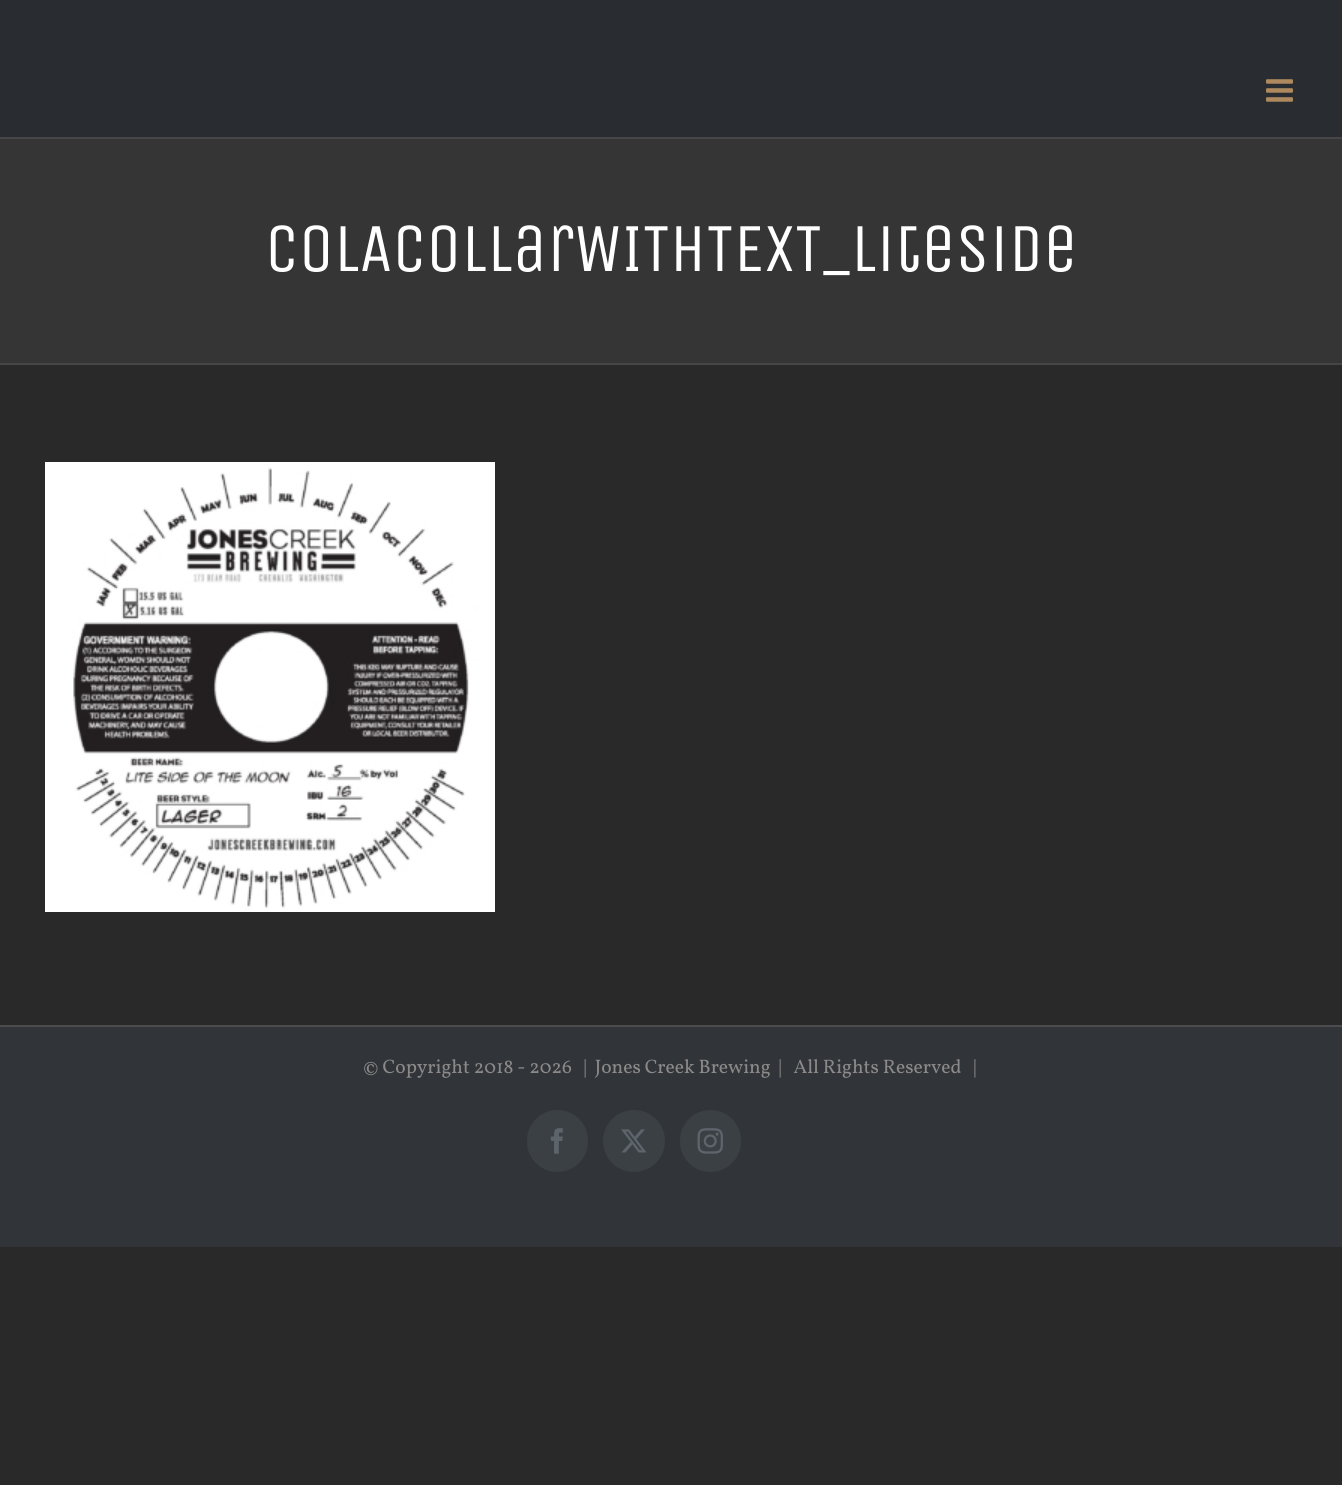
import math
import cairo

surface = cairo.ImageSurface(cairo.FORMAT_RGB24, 1342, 1485)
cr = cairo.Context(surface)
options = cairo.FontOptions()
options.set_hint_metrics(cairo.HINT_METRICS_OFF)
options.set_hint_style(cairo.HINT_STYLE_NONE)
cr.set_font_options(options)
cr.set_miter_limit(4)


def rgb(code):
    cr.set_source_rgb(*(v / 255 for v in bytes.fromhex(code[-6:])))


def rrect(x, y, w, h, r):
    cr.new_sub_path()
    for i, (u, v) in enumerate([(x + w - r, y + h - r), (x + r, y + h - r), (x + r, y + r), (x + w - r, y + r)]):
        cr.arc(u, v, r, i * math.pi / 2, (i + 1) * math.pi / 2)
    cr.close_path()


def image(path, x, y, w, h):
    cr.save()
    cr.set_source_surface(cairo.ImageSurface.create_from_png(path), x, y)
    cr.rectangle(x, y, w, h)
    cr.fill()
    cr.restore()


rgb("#29292a")
cr.paint()
rgb("#292c30")
cr.rectangle(0, 0, 1342, 137)
cr.fill()
image("img/1.png", 1266, 79, 27, 23)
for x, y, w, h, color in [
    (0, 139, 1342, 224, "#353535"),
    (0, 137, 1342, 2, "#464646"),
    (0, 363, 1342, 2, "#464646"),
]:
    rgb(color)
    cr.rectangle(x, y, w, h)
    cr.fill()
image("img/2.png", 45, 462, 450, 450)
rgb("#313539")
cr.rectangle(0, 1027, 1342, 220)
cr.fill()
rgb("#4b4c4d")
cr.rectangle(0, 1025, 1342, 2)
cr.fill()
rgb("#3b4045")
rrect(528, 1111, 59, 60, 29.5)
cr.fill_preserve()
cr.stroke()
image("img/3.png", 550, 1128, 13, 26)
cr.arc(634, 1141, 30, 0, 2 * math.pi)
cr.fill_preserve()
cr.stroke()
image("img/4.png", 621, 1129, 26, 24)
rrect(681, 1111, 59, 60, 29.5)
cr.fill_preserve()
cr.stroke()
image("img/5.png", 697, 1128, 26, 26)
cr.select_font_face("Unica One")
cr.set_font_size(68.8)
rgb("#ffffff")
cr.move_to(265, 271)
cr.show_text("COLAcollarWITHTEXT_liteside")
cr.select_font_face("Vollkorn")
cr.set_font_size(19.5)
rgb("#8c8989")
cr.move_to(363, 1073)
cr.show_text("© Copyright 2018 - 2026   |  Jones Creek Brewing  |   All Rights Reserved   |")
surface.write_to_png("page.png")
